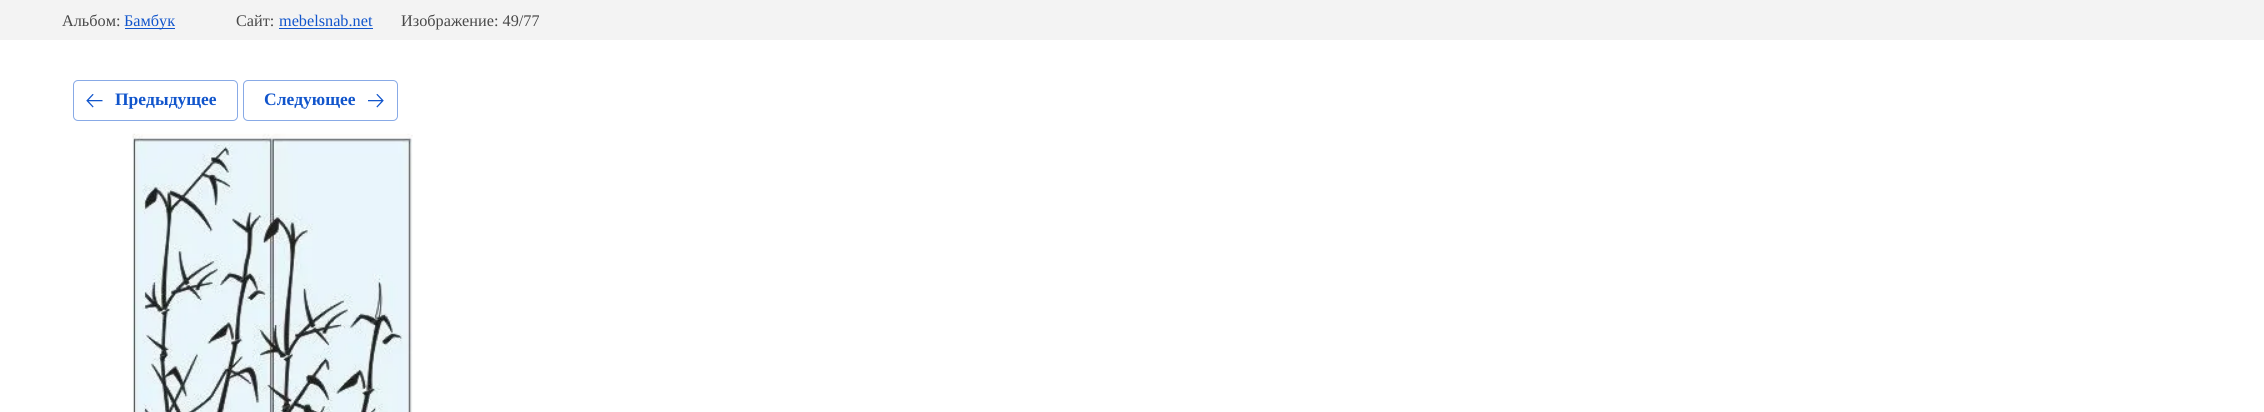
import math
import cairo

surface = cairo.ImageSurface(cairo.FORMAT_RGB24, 2264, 412)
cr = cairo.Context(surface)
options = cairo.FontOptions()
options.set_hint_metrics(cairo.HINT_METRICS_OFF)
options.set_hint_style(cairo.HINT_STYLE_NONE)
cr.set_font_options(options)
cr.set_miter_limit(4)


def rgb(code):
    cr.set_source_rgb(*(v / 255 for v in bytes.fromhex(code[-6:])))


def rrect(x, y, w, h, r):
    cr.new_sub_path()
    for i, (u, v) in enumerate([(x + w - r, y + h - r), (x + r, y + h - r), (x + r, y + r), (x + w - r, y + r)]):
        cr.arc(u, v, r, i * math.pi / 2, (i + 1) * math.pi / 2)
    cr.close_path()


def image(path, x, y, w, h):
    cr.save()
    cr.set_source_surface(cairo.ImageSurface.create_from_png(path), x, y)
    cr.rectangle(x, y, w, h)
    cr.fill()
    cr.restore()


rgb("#ffffff")
cr.paint()
for x, y, w, h, color in [
    (0, 0, 2264, 40, "#f3f3f3"),
    (125, 28, 50, 1, "#1155cc"),
    (279, 28, 94, 1, "#1155cc"),
]:
    rgb(color)
    cr.rectangle(x, y, w, h)
    cr.fill()
rrect(73.5, 80.5, 164, 40, 4.5)
rgb("#88aae6")
cr.set_line_width(1)
cr.stroke()
image("img/1.png", 86, 94, 17, 14)
rrect(243.5, 80.5, 154, 40, 4.5)
cr.stroke()
image("img/2.png", 368, 94, 16, 14)
image("img/3.png", 132, 133, 281, 279)
cr.select_font_face("Liberation Serif")
cr.set_font_size(16.25)
rgb("#484848")
cr.move_to(62, 26)
cr.show_text("Альбом:")
rgb("#1155cc")
cr.move_to(124, 26)
cr.show_text("Бамбук")
rgb("#484848")
cr.move_to(236, 26)
cr.show_text("Сайт:")
rgb("#1155cc")
cr.move_to(279, 26)
cr.show_text("mebelsnab.net")
rgb("#484848")
cr.move_to(401, 26)
cr.show_text("Изображение: 49/77")
cr.select_font_face("Liberation Serif", cairo.FONT_SLANT_NORMAL, cairo.FONT_WEIGHT_BOLD)
cr.set_font_size(17.5)
rgb("#1155cc")
cr.move_to(115, 105)
cr.show_text("Предыдущее")
cr.move_to(264, 105)
cr.show_text("Следующее")
surface.write_to_png("page.png")
